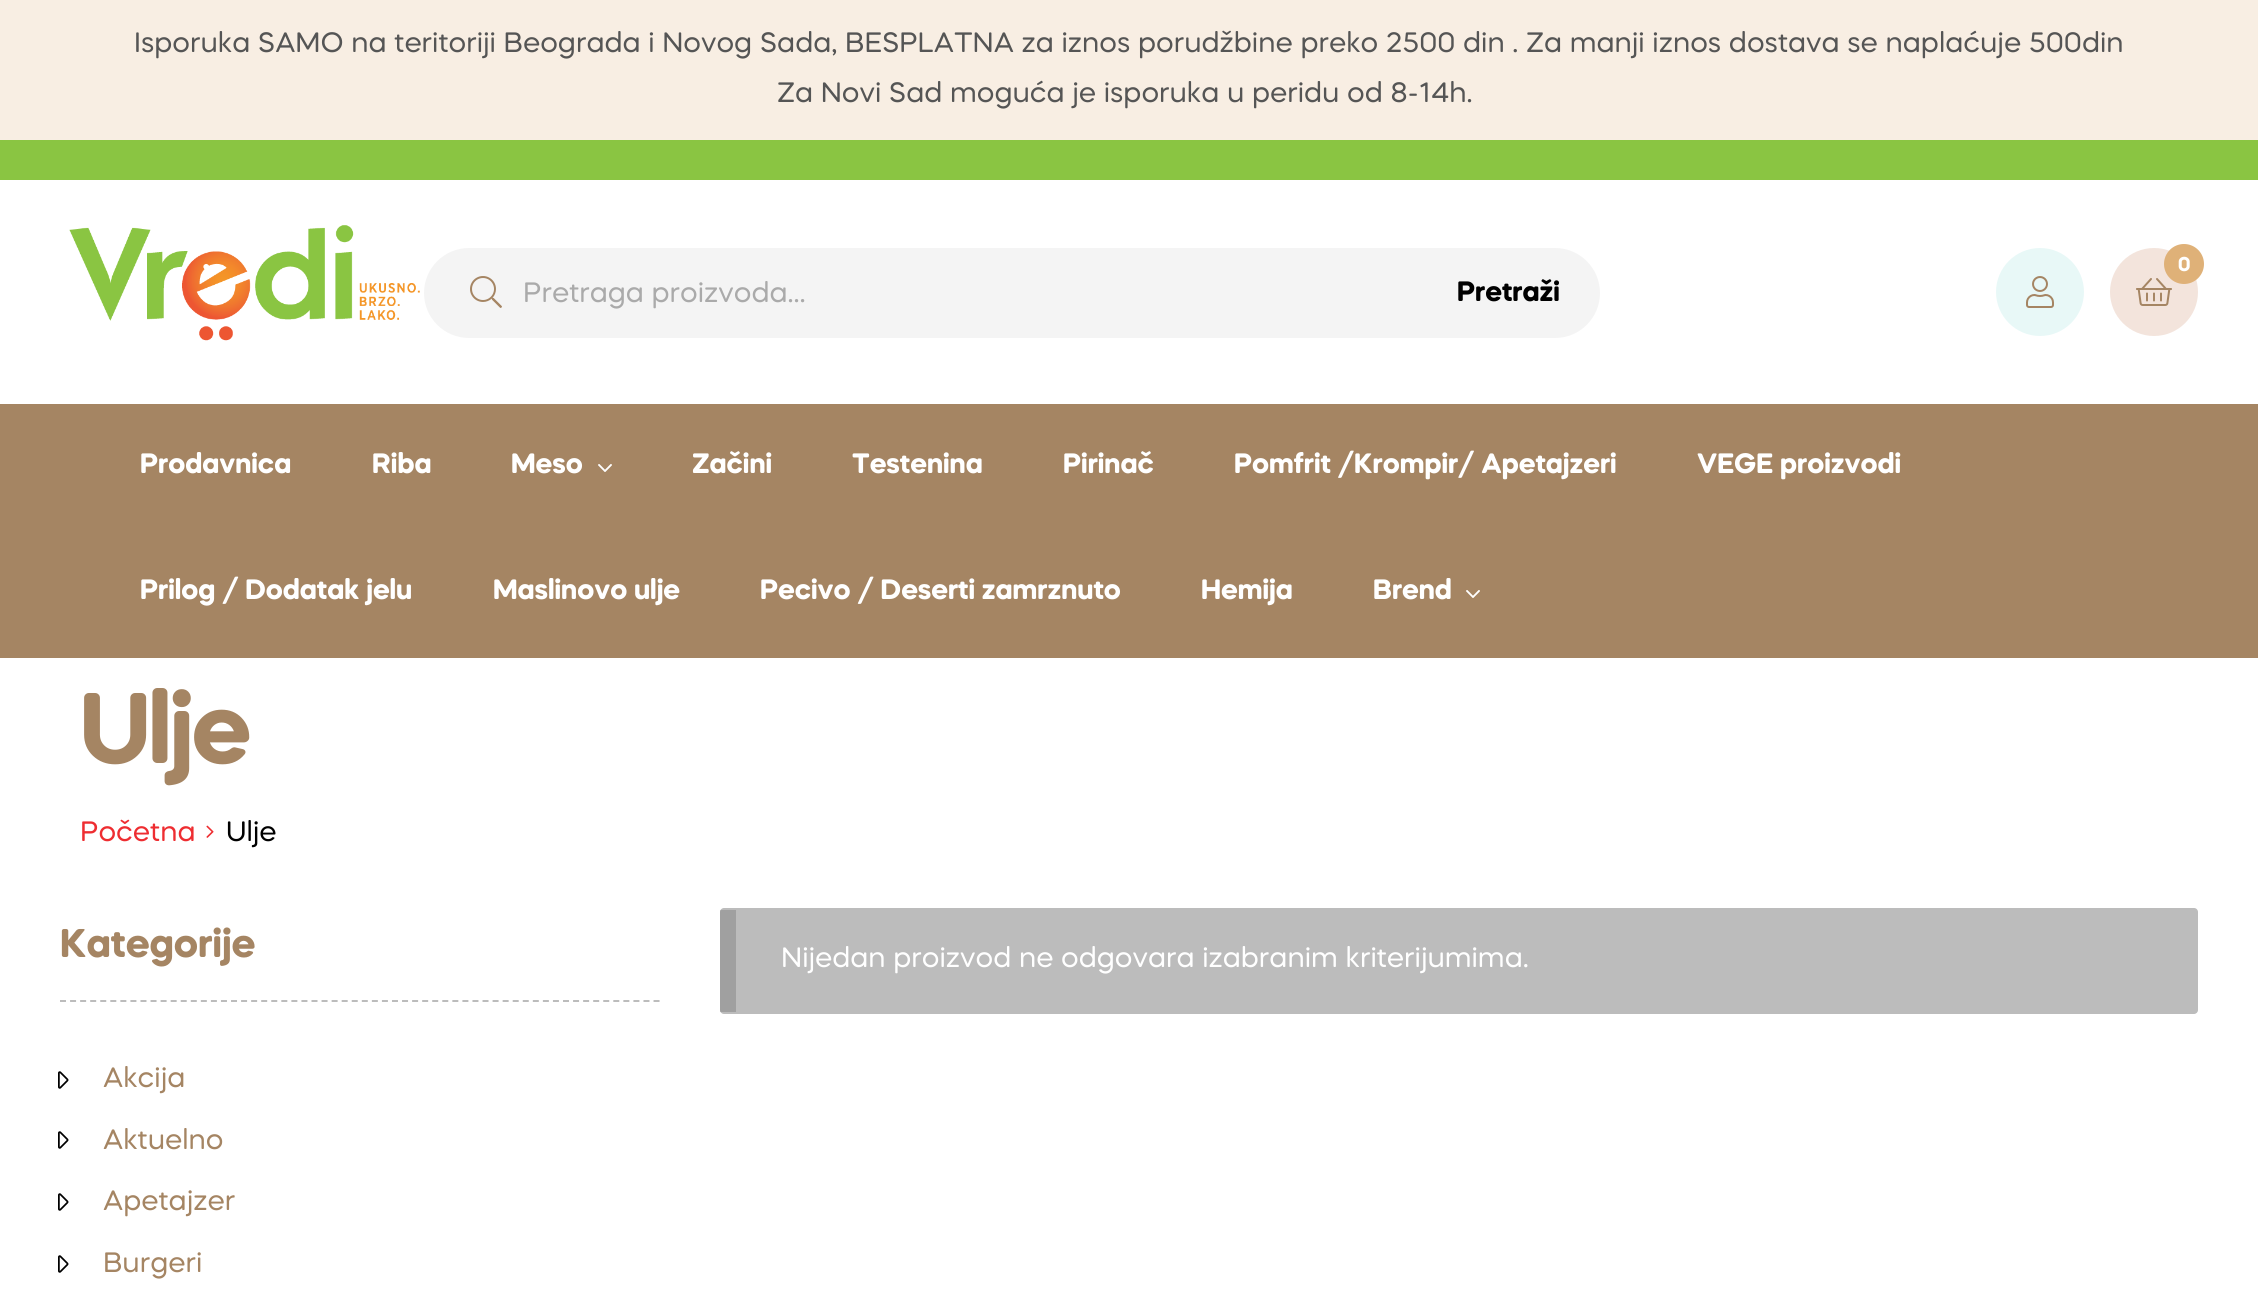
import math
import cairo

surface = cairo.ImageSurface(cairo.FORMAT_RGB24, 2258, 1307)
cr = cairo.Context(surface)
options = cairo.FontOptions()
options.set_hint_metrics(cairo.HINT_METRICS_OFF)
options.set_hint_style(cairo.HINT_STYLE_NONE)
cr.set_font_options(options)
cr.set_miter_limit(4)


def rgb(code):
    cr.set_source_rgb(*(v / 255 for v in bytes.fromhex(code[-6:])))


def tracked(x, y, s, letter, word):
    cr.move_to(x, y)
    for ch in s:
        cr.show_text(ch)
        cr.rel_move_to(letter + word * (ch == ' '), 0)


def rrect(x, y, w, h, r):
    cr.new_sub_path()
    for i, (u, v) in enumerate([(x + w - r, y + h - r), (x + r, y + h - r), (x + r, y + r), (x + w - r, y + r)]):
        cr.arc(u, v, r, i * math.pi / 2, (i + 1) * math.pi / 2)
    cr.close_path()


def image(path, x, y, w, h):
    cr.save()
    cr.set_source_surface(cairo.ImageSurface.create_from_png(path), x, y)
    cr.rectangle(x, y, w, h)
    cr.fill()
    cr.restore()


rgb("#ffffff")
cr.paint()
rgb("#f8eee3")
cr.rectangle(0, 0, 2258, 140)
cr.fill()
rgb("#8ac542")
cr.rectangle(0, 140, 2258, 40)
cr.fill()
image("img/1.png", 69, 225, 351, 116)
rgb("#e8f8f7")
cr.arc(2040, 292, 44, 0, 2 * math.pi)
cr.fill()
image("img/2.png", 2026, 276, 28, 32)
rgb("#f3e4dc")
cr.arc(2154, 292, 44, 0, 2 * math.pi)
cr.fill()
image("img/3.png", 2136, 278, 36, 28)
rgb("#dfb178")
cr.arc(2184, 264, 20, 0, 2 * math.pi)
cr.fill()
rgb("#f4f4f4")
rrect(424, 248, 1176, 90, 45)
cr.fill()
image("img/4.png", 470, 276, 32, 32)
rgb("#a58563")
cr.rectangle(0, 404, 2258, 254)
cr.fill()
image("img/5.png", 598, 464, 14, 8)
image("img/5.png", 1466, 590, 14, 8)
image("img/6.png", 206, 825, 8, 13)
cr.new_path()
cr.move_to(60, 1001)
cr.line_to(660, 1001)
rgb("#bcbcbc")
cr.set_dash([6, 4.06])
cr.stroke()
image("img/7.png", 58, 1071, 11, 18)
image("img/7.png", 58, 1131, 11, 18)
image("img/7.png", 58, 1193, 11, 18)
image("img/7.png", 58, 1255, 11, 18)
rrect(720, 908, 1478, 106, 4)
cr.fill()
cr.set_source_rgba(0, 0, 0, 0.15)
cr.rectangle(720, 910, 16, 102)
cr.fill()
cr.select_font_face("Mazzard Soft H")
cr.set_font_size(28)
rgb("#555555")
cr.move_to(134, 52)
cr.show_text("Isporuka SAMO na teritoriji Beograda i Novog Sada, BESPLATNA za iznos porudžbine preko 2500 din . Za manji iznos dostava se naplaćuje 500din")
cr.move_to(777, 102)
cr.show_text("Za Novi Sad moguća je isporuka u peridu od 8-14h.")
cr.select_font_face("Mazzard Soft H", cairo.FONT_SLANT_NORMAL, cairo.FONT_WEIGHT_BOLD)
cr.set_font_size(20)
rgb("#ffffff")
cr.move_to(2178, 271)
cr.show_text("0")
cr.select_font_face("Mazzard Soft H")
cr.set_font_size(28)
rgb("#aaaaaa")
cr.move_to(523, 302)
cr.show_text("Pretraga proizvoda…")
cr.select_font_face("Mazzard Soft H", cairo.FONT_SLANT_NORMAL, cairo.FONT_WEIGHT_BOLD)
rgb("#000000")
cr.move_to(1457, 301)
cr.show_text("Pretraži")
rgb("#ffffff")
for x, y, s in [
    (140, 473, "Prodavnica"),
    (372, 473, "Riba"),
    (511, 473, "Meso"),
    (692, 473, "Začini"),
    (852, 473, "Testenina"),
    (1063, 473, "Pirinač"),
    (1234, 473, "Pomfrit /Krompir/ Apetajzeri"),
    (1697, 473, "VEGE proizvodi"),
    (140, 599, "Prilog / Dodatak jelu"),
    (493, 599, "Maslinovo ulje"),
    (760, 599, "Pecivo / Deserti zamrznuto"),
    (1201, 599, "Hemija"),
    (1373, 599, "Brend"),
]:
    cr.move_to(x, y)
    cr.show_text(s)
cr.set_font_size(100)
rgb("#a58563")
tracked(80, 763, "Ulje", -2, 0)
cr.select_font_face("Mazzard Soft H")
cr.set_font_size(28)
rgb("#ee2d31")
cr.move_to(80, 841)
cr.show_text("Početna")
rgb("#000000")
cr.move_to(226, 841)
cr.show_text("Ulje")
cr.select_font_face("Mazzard Soft H", cairo.FONT_SLANT_NORMAL, cairo.FONT_WEIGHT_BOLD)
cr.set_font_size(40)
rgb("#a58563")
cr.move_to(60, 957)
cr.show_text("Kategorije")
cr.select_font_face("Mazzard Soft H")
cr.set_font_size(28)
for x, y, s in [
    (103, 1087, "Akcija"),
    (103, 1149, "Aktuelno"),
    (103, 1210, "Apetajzer"),
    (103, 1272, "Burgeri"),
]:
    cr.move_to(x, y)
    cr.show_text(s)
rgb("#ffffff")
cr.move_to(781, 967)
cr.show_text("Nijedan proizvod ne odgovara izabranim kriterijumima.")
surface.write_to_png("page.png")
